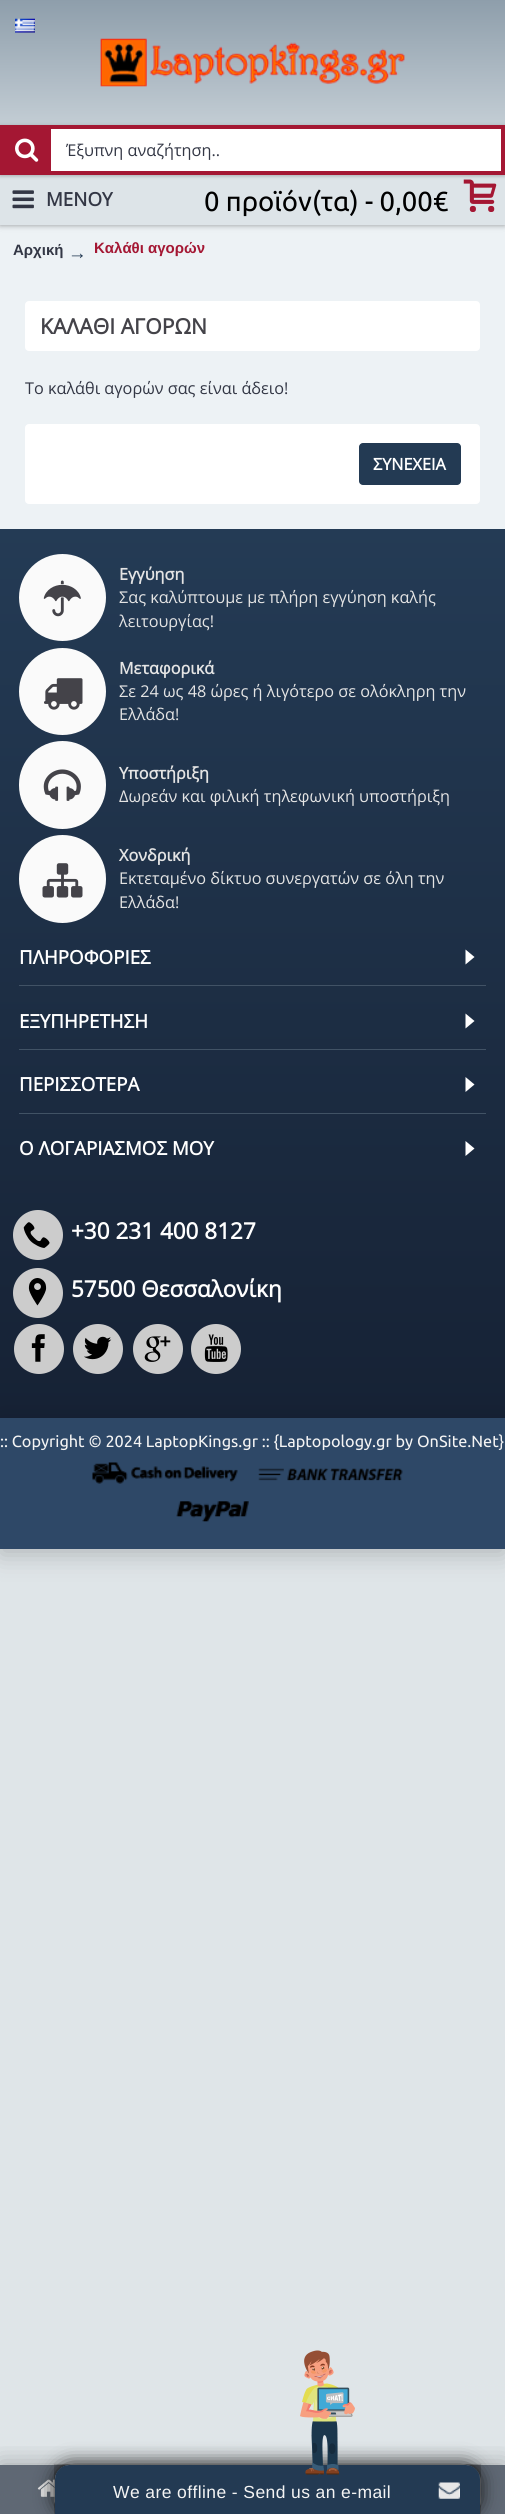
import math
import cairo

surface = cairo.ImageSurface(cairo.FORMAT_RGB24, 505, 2514)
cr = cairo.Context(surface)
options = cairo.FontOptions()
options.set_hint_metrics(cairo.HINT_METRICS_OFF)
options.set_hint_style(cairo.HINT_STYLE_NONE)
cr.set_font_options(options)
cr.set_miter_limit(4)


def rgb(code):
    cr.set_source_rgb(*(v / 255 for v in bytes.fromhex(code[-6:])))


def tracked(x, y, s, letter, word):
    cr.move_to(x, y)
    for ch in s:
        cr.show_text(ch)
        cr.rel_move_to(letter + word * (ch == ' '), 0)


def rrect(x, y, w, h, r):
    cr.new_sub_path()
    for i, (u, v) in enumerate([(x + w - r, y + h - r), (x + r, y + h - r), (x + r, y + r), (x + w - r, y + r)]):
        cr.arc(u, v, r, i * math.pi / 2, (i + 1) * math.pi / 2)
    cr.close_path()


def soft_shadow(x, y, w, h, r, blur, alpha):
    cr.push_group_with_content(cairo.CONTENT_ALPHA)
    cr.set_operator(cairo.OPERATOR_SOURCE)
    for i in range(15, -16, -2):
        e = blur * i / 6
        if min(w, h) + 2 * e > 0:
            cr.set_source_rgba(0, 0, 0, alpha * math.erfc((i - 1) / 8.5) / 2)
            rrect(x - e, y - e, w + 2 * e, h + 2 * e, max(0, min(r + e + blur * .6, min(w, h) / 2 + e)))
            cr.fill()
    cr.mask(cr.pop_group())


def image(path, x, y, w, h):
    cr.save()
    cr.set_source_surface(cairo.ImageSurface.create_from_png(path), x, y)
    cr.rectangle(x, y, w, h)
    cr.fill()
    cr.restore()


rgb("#dfe5e8")
cr.paint()
rgb("#edf2f5")
cr.rectangle(0, 225, 505, 304)
cr.fill()
rgb("#000000")
soft_shadow(0, 0, 505, 225, 0, 3, 0.4)
gradient = cairo.LinearGradient(253, 0, 253, 225)
gradient.add_color_stop_rgba(0, 0.557, 0.62, 0.671, 1)
gradient.add_color_stop_rgba(1, 0.929, 0.949, 0.961, 1)
cr.set_source(gradient)
cr.rectangle(0, 0, 505, 125)
cr.fill()
image("img/1.png", 15, 18, 20, 15)
rgb("#5f6874")
cr.rectangle(0, 2465, 505, 49)
cr.fill()
cr.save()
cr.rectangle(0, 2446, 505, 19)
cr.clip()
rgb("#000000")
soft_shadow(0, 2465, 505, 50, 0, 12.5, 0.3)
cr.restore()
image("img/2.png", 37, 2479, 18, 18)
image("img/3.png", 100, 38, 305, 49)
rgb("#dde4e8")
cr.rectangle(0, 175, 505, 50)
cr.fill()
image("img/5.png", 463, 179, 34, 33)
rgb("#000000")
soft_shadow(0, 126, 505, 50, 0, 2, 0.25)
rgb("#ffffff")
cr.rectangle(51, 129, 450, 42)
cr.fill()
cr.rectangle(2, 127, 501, 46)
rgb("#a41733")
cr.set_line_width(4)
cr.stroke()
cr.rectangle(4, 129, 47, 42)
cr.fill()
image("img/4.png", 15, 138, 24, 24)
image("img/6.png", 12, 190, 22, 19)
rgb("#ffffff")
rrect(25, 301, 455, 50, 4)
cr.fill()
rrect(25, 424, 455, 80, 4)
cr.fill()
rgb("#233a53")
rrect(359, 443, 102, 42, 4)
cr.fill()
gradient = cairo.LinearGradient(253, 1549, 253, 529)
gradient.add_color_stop_rgba(0, 0.078, 0.118, 0.188, 1)
gradient.add_color_stop_rgba(1, 0.141, 0.231, 0.333, 1)
cr.set_source(gradient)
cr.rectangle(0, 529, 505, 889)
cr.fill()
rgb("#fafafa")
cr.arc(62.5, 597.5, 43.5, 0, 2 * math.pi)
cr.fill()
image("img/7.png", 43, 580, 38, 37)
cr.arc(62.5, 691.5, 43.5, 0, 2 * math.pi)
cr.fill()
image("img/8.png", 44, 678, 39, 32)
rrect(19, 741, 87, 88, 43.5)
cr.fill()
image("img/9.png", 43, 769, 38, 32)
rrect(19, 835, 87, 88, 43.5)
cr.fill()
image("img/10.png", 42, 863, 41, 35)
rgb("#415265")
cr.rectangle(19, 985, 467, 1)
cr.fill()
rgb("#ffffff")
cr.new_path()
cr.move_to(465.5, 949.5)
cr.line_to(465.5, 964.5)
cr.line_to(474.5, 957)
cr.close_path()
cr.fill()
rgb("#415265")
cr.rectangle(19, 1049, 467, 1)
cr.fill()
rgb("#ffffff")
cr.new_path()
cr.move_to(465.5, 1013.5)
cr.line_to(465.5, 1028.5)
cr.line_to(474.5, 1021)
cr.close_path()
cr.fill()
rgb("#415265")
cr.rectangle(19, 1113, 467, 1)
cr.fill()
rgb("#ffffff")
cr.new_path()
cr.move_to(465.5, 1077)
cr.line_to(465.5, 1092)
cr.line_to(474.5, 1084.5)
cr.close_path()
cr.fill()
cr.new_path()
cr.move_to(465.5, 1141)
cr.line_to(465.5, 1156)
cr.line_to(474.5, 1148.5)
cr.close_path()
cr.fill()
rgb("#cccccc")
cr.arc(38, 1235, 25, 0, 2 * math.pi)
cr.fill()
image("img/11.png", 23, 1222, 27, 26)
cr.arc(38, 1293, 25, 0, 2 * math.pi)
cr.fill()
image("img/12.png", 28, 1278, 19, 28)
cr.arc(39, 1349, 25, 0, 2 * math.pi)
cr.fill()
image("img/13.png", 31, 1334, 14, 28)
cr.arc(98, 1349, 25, 0, 2 * math.pi)
cr.fill()
image("img/14.png", 84, 1336, 28, 24)
cr.arc(158, 1349, 25, 0, 2 * math.pi)
cr.fill()
image("img/15.png", 144, 1336, 27, 26)
cr.arc(216, 1349, 25, 0, 2 * math.pi)
cr.fill()
image("img/16.png", 204, 1334, 24, 28)
rgb("#000000")
soft_shadow(0, 1424, 505, 131, 0, 12.5, 0.2)
rgb("#2e4867")
cr.rectangle(0, 1418, 505, 131)
cr.fill()
image("img/17.png", 92, 1462, 146, 22)
image("img/18.png", 258, 1468, 145, 13)
image("img/19.png", 176, 1501, 73, 21)
rgb("#111111")
soft_shadow(55, 2465, 425, 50, 16, 9.5, 1)
image("img/21.png", 54, 2464, 427, 50)
rgb("#233a53")
cr.new_path()
cr.move_to(69, 2465)
cr.line_to(466, 2465)
cr.curve_to(473.5, 2465, 480, 2471.5, 480, 2479)
cr.line_to(480, 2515)
cr.line_to(55, 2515)
cr.line_to(55, 2479)
cr.curve_to(55, 2471.5, 61.5, 2465, 69, 2465)
cr.close_path()
cr.fill()
image("img/20.png", 300, 2350, 55, 125)
image("img/22.png", 438, 2482, 22, 17)
cr.select_font_face("Open Sans")
cr.set_font_size(16.25)
rgb("#333745")
cr.move_to(66, 156)
cr.show_text("Έξυπνη αναζήτηση..")
cr.select_font_face("Ubuntu")
cr.set_font_size(27.5)
rgb("#000000")
cr.move_to(204, 211)
cr.show_text("0 προϊόν(τα) - 0,00€")
cr.select_font_face("Open Sans", cairo.FONT_SLANT_NORMAL, cairo.FONT_WEIGHT_BOLD)
cr.set_font_size(18.75)
rgb("#333745")
cr.move_to(46, 206)
cr.show_text("MENOY")
cr.select_font_face("Liberation Sans", cairo.FONT_SLANT_NORMAL, cairo.FONT_WEIGHT_BOLD)
cr.set_font_size(15)
cr.move_to(13, 255)
cr.show_text("Αρχική")
cr.select_font_face("Liberation Serif")
cr.set_font_size(18.75)
rgb("#233a53")
cr.move_to(68, 259)
cr.show_text("→")
cr.select_font_face("Liberation Sans", cairo.FONT_SLANT_NORMAL, cairo.FONT_WEIGHT_BOLD)
cr.set_font_size(15)
rgb("#a41733")
cr.move_to(94, 253)
cr.show_text("Καλάθι αγορών")
cr.select_font_face("Open Sans", cairo.FONT_SLANT_NORMAL, cairo.FONT_WEIGHT_BOLD)
cr.set_font_size(21.25)
rgb("#444349")
cr.move_to(40, 334)
cr.show_text("ΚΑΛΑΘΙ ΑΓΟΡΩΝ")
cr.select_font_face("Open Sans")
cr.set_font_size(16.25)
rgb("#333745")
cr.move_to(25, 394)
cr.show_text("Το καλάθι αγορών σας είναι άδειο!")
cr.select_font_face("Open Sans", cairo.FONT_SLANT_NORMAL, cairo.FONT_WEIGHT_BOLD)
rgb("#ffffff")
cr.move_to(373, 470)
cr.show_text("ΣΥΝΕΧΕΙΑ")
rgb("#e4e4e4")
cr.move_to(119, 580)
cr.show_text("Εγγύηση")
cr.select_font_face("Open Sans")
cr.move_to(119, 603)
cr.show_text("Σας καλύπτουμε με πλήρη εγγύηση καλής")
cr.move_to(119, 627)
cr.show_text("λειτουργίας!")
cr.select_font_face("Open Sans", cairo.FONT_SLANT_NORMAL, cairo.FONT_WEIGHT_BOLD)
cr.move_to(119, 674)
cr.show_text("Μεταφορικά")
cr.select_font_face("Open Sans")
cr.move_to(119, 697)
cr.show_text("Σε 24 ως 48 ώρες ή λιγότερο σε ολόκληρη την")
cr.move_to(119, 720)
cr.show_text("Ελλάδα!")
cr.select_font_face("Open Sans", cairo.FONT_SLANT_NORMAL, cairo.FONT_WEIGHT_BOLD)
cr.move_to(119, 779)
cr.show_text("Υποστήριξη")
cr.select_font_face("Open Sans")
cr.move_to(119, 802)
cr.show_text("Δωρεάν και φιλική τηλεφωνική υποστήριξη")
cr.select_font_face("Open Sans", cairo.FONT_SLANT_NORMAL, cairo.FONT_WEIGHT_BOLD)
cr.move_to(119, 861)
cr.show_text("Χονδρική")
cr.select_font_face("Open Sans")
cr.move_to(119, 884)
cr.show_text("Εκτεταμένο δίκτυο συνεργατών σε όλη την")
cr.move_to(119, 908)
cr.show_text("Ελλάδα!")
cr.select_font_face("Open Sans", cairo.FONT_SLANT_NORMAL, cairo.FONT_WEIGHT_BOLD)
cr.set_font_size(18.75)
rgb("#ffffff")
for x, y, s in [
    (19, 964, "ΠΛΗΡΟΦΟΡΙΕΣ"),
    (19, 1028, "ΕΞΥΠΗΡΕΤΗΣΗ"),
    (19, 1091, "ΠΕΡΙΣΣΟΤΕΡΑ"),
    (19, 1155, "Ο ΛΟΓΑΡΙΑΣΜΟΣ ΜΟΥ"),
]:
    cr.move_to(x, y)
    cr.show_text(s)
cr.set_font_size(22.5)
cr.move_to(71, 1239)
cr.show_text("+30 231 400 8127")
cr.move_to(71, 1297)
cr.show_text("57500 Θεσσαλονίκη")
cr.select_font_face("Ubuntu")
cr.set_font_size(16.25)
rgb("#f4f4f4")
cr.move_to(0, 1447)
cr.show_text(":: Copyright © 2024 LaptopKings.gr :: {Laptopology.gr by OnSite.Net}")
cr.select_font_face("Liberation Sans")
cr.set_font_size(17.5)
tracked(113, 2498, "We are offline - Send us an e-mail", 0.4, 0)
surface.write_to_png("page.png")
